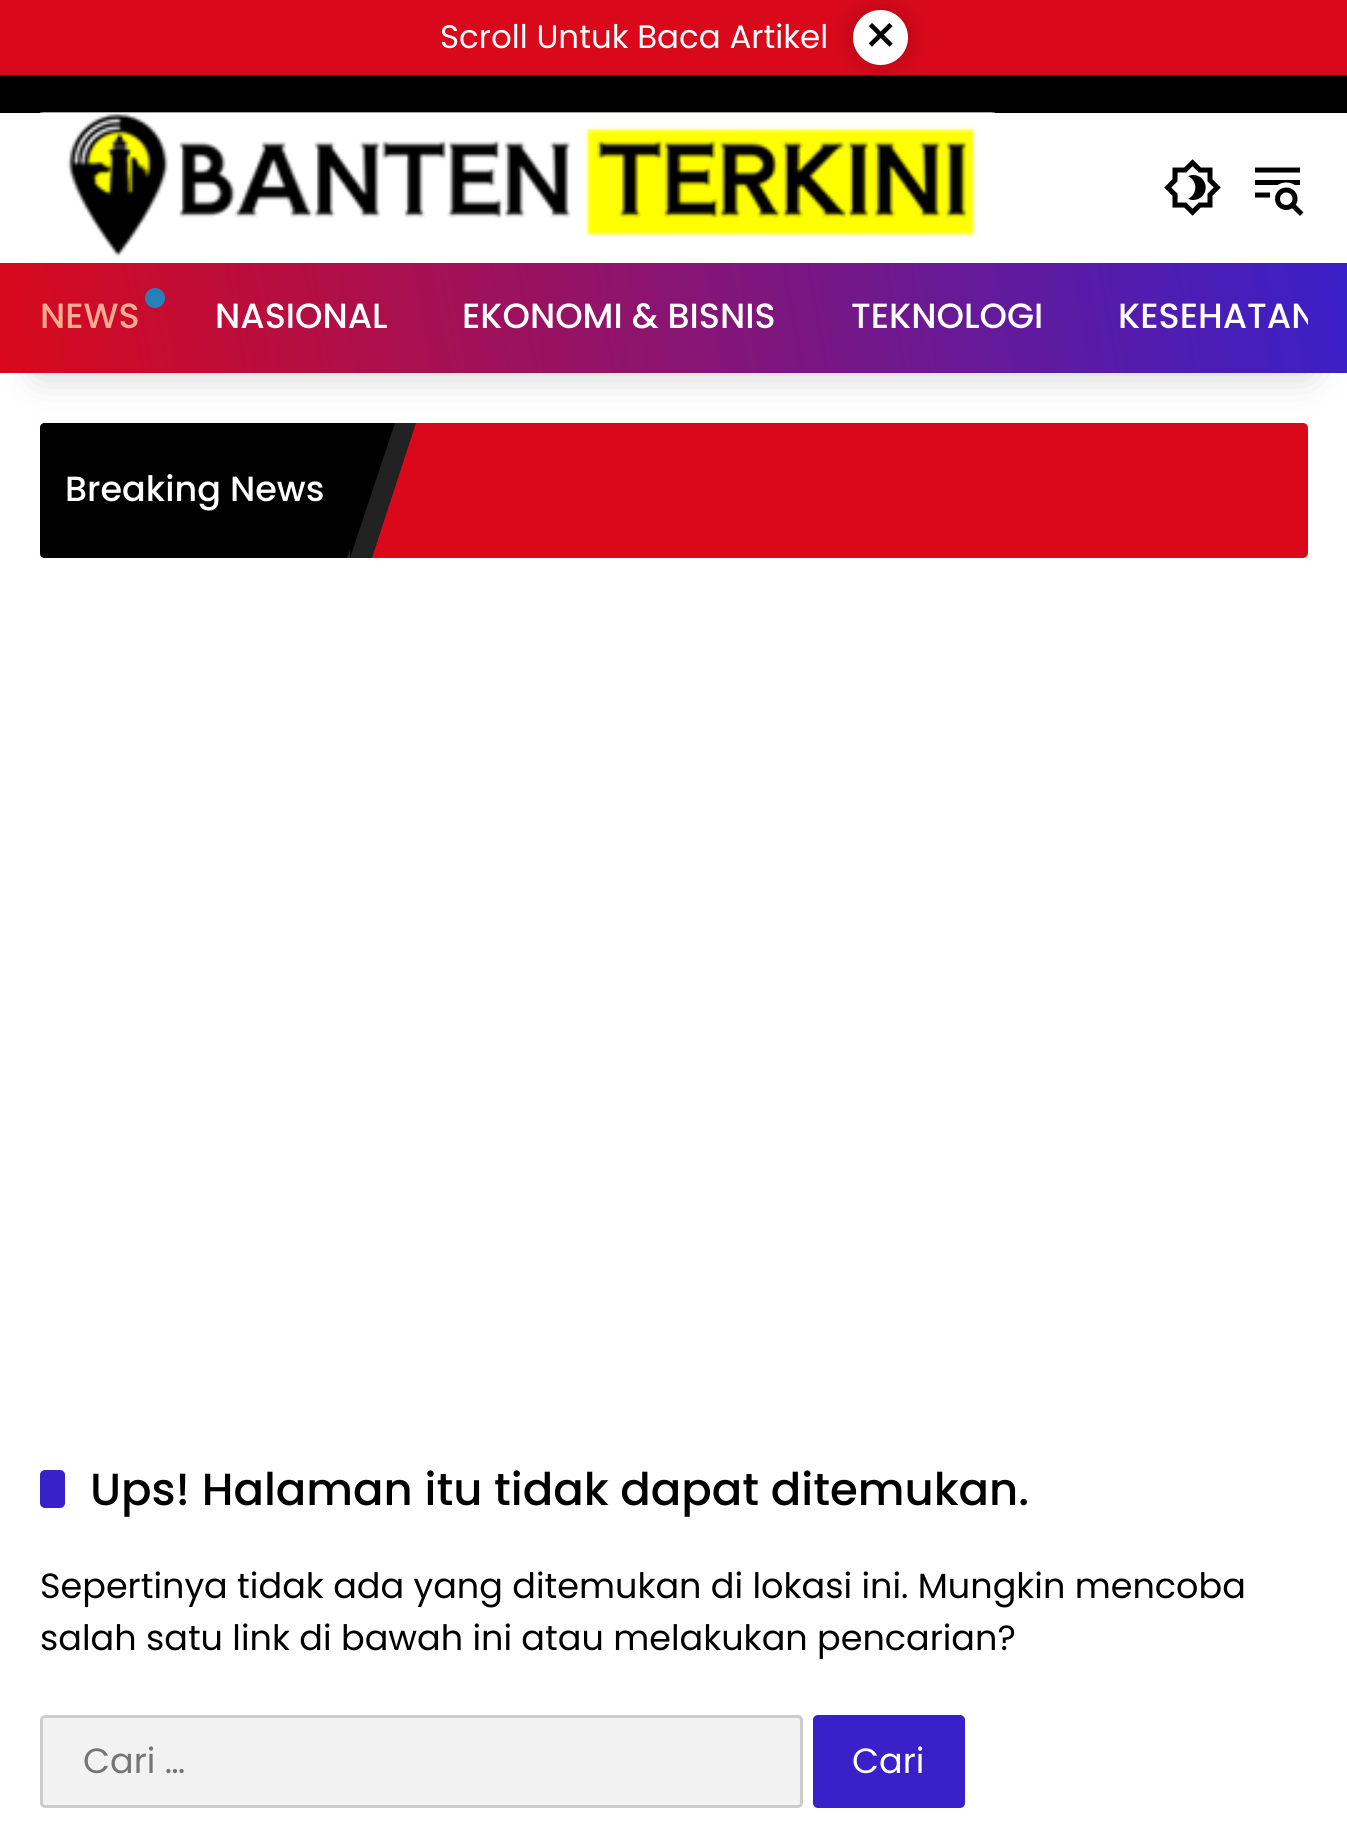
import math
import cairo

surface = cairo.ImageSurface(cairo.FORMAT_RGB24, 1347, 1828)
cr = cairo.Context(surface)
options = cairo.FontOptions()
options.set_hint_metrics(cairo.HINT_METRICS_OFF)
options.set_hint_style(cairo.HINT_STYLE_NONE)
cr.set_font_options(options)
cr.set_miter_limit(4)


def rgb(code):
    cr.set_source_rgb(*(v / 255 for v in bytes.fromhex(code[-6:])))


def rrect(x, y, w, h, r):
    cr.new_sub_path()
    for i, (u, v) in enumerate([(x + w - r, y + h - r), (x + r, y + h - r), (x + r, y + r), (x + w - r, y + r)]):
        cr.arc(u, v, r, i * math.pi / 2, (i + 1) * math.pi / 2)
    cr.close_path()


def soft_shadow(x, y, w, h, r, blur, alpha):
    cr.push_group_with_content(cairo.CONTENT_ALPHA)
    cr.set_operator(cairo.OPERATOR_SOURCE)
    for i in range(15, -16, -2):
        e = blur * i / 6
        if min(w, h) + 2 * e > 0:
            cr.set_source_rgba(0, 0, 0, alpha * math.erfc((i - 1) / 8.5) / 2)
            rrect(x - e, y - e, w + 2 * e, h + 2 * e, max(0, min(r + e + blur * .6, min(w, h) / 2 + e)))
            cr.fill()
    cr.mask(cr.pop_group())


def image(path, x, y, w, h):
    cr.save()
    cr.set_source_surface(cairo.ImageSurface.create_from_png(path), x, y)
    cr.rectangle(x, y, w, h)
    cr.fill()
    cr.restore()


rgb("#000000")
cr.paint()
rgb("#d9091b")
cr.rectangle(0, 0, 1347, 75)
cr.fill()
rgb("#000000")
soft_shadow(853, 10, 55, 55, 27.5, 12.5, 0.2)
rgb("#ffffff")
cr.arc(880.5, 37.5, 27.5, 0, 2 * math.pi)
cr.fill()
cr.rectangle(0, 113, 1347, 1715)
cr.fill()
image("img/1.png", 40, 112, 955, 145)
image("img/2.png", 1164, 159, 57, 57)
image("img/3.png", 1255, 167, 49, 49)
rgb("#d9091b")
rrect(40, 423, 1268, 135, 5)
cr.fill()
rgb("#000000")
cr.new_path()
cr.move_to(45, 423)
cr.line_to(350, 423)
cr.line_to(350, 558)
cr.line_to(45, 558)
cr.curve_to(42, 558, 40, 556, 40, 553)
cr.line_to(40, 428)
cr.curve_to(40, 425, 42, 423, 45, 423)
cr.close_path()
cr.fill()
rgb("#222222")
cr.new_path()
cr.move_to(347, 558)
cr.line_to(372, 558)
cr.line_to(416, 423)
cr.line_to(391, 423)
cr.close_path()
cr.fill()
rgb("#000000")
cr.new_path()
cr.move_to(395, 423)
cr.line_to(350, 558)
cr.line_to(350, 423)
cr.close_path()
cr.fill()
rgb("#000000")
soft_shadow(38, 338, 1272, 35, 0, 19, 0.2)
gradient = cairo.LinearGradient(11, 434, 1337, 201)
gradient.add_color_stop_rgba(0, 0.851, 0.035, 0.106, 1)
gradient.add_color_stop_rgba(1, 0.224, 0.125, 0.788, 1)
cr.set_source(gradient)
cr.rectangle(0, 263, 1347, 110)
cr.fill()
rgb("#2980b9")
cr.arc(155, 298, 10, 0, 2 * math.pi)
cr.fill()
rgb("#3920c9")
rrect(40, 1470, 25, 38, 5)
cr.fill()
rgb("#f2f2f2")
rrect(41.5, 1716.5, 760, 90, 3.5)
cr.fill_preserve()
rgb("#cccccc")
cr.set_line_width(3)
cr.stroke()
rgb("#3920c9")
rrect(813, 1715, 152, 93, 5)
cr.fill()
cr.select_font_face("Poppins")
cr.set_font_size(32.5)
rgb("#ffffff")
cr.move_to(440, 48)
cr.show_text("Scroll Untuk Baca Artikel")
cr.set_font_size(55)
rgb("#000000")
cr.move_to(863, 55)
cr.show_text("×")
cr.select_font_face("Poppins Medium")
cr.set_font_size(35)
rgb("#ffab91")
cr.move_to(40, 328)
cr.show_text("NEWS")
rgb("#ffffff")
for x, y, s in [
    (215, 328, "NASIONAL"),
    (462, 328, "EKONOMI & BISNIS"),
    (851, 328, "TEKNOLOGI"),
]:
    cr.move_to(x, y)
    cr.show_text(s)
cr.save()
cr.rectangle(40, 263, 1268, 110)
cr.clip()
cr.move_to(1118, 328)
cr.show_text("KESEHATAN")
cr.restore()
cr.move_to(65, 501)
cr.show_text("Breaking News")
cr.set_font_size(45)
rgb("#000000")
cr.move_to(90, 1505)
cr.show_text("Ups! Halaman itu tidak dapat ditemukan.")
cr.select_font_face("Poppins")
cr.set_font_size(35)
cr.move_to(40, 1598)
cr.show_text("Sepertinya tidak ada yang ditemukan di lokasi ini. Mungkin mencoba")
cr.move_to(40, 1650)
cr.show_text("salah satu link di bawah ini atau melakukan pencarian?")
rgb("#757575")
cr.move_to(83, 1773)
cr.show_text("Cari …")
rgb("#ffffff")
cr.move_to(852, 1773)
cr.show_text("Cari")
surface.write_to_png("page.png")
